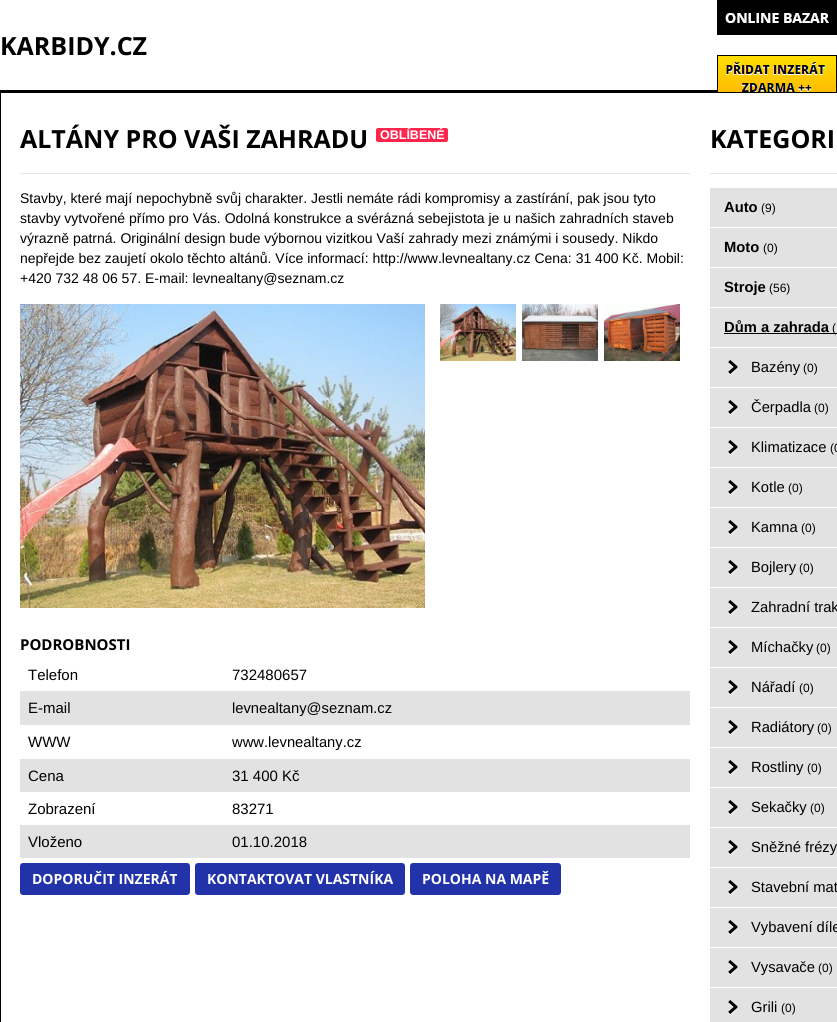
import math
import cairo

surface = cairo.ImageSurface(cairo.FORMAT_RGB24, 837, 1022)
cr = cairo.Context(surface)
options = cairo.FontOptions()
options.set_hint_metrics(cairo.HINT_METRICS_OFF)
options.set_hint_style(cairo.HINT_STYLE_NONE)
cr.set_font_options(options)
cr.set_miter_limit(4)


def rgb(code):
    cr.set_source_rgb(*(v / 255 for v in bytes.fromhex(code[-6:])))


def rrect(x, y, w, h, r):
    cr.new_sub_path()
    for i, (u, v) in enumerate([(x + w - r, y + h - r), (x + r, y + h - r), (x + r, y + r), (x + w - r, y + r)]):
        cr.arc(u, v, r, i * math.pi / 2, (i + 1) * math.pi / 2)
    cr.close_path()


def image(path, x, y, w, h):
    cr.save()
    cr.set_source_surface(cairo.ImageSurface.create_from_png(path), x, y)
    cr.rectangle(x, y, w, h)
    cr.fill()
    cr.restore()


rgb("#ffffff")
cr.paint()
image("img/1.png", 717, 0, 120, 35)
image("img/2.png", 717, 55, 120, 37)
rgb("#000000")
cr.rectangle(0, 90, 717, 2)
cr.fill()
cr.rectangle(0.5, 92.5, 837, 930)
cr.set_line_width(1)
cr.stroke()
rgb("#e6e6e6")
cr.rectangle(20, 173, 670, 1)
cr.fill()
rgb("#ff264e")
rrect(375.5, 127.5, 73, 15, 2.5)
cr.fill_preserve()
rgb("#ffffff")
cr.stroke()
image("img/3.png", 20, 304, 405, 304)
image("img/4.png", 440, 304, 76, 57)
image("img/5.png", 522, 304, 76, 57)
image("img/6.png", 604, 304, 76, 57)
for x, y, w, h, color in [
    (20, 691, 670, 34, "#e2e2e3"),
    (20, 759, 670, 33, "#e2e2e3"),
    (20, 825, 670, 33, "#e2e2e3"),
]:
    rgb(color)
    cr.rectangle(x, y, w, h)
    cr.fill()
rgb("#2233aa")
rrect(20, 863, 170, 32, 3)
cr.fill()
rrect(195, 863, 210, 32, 3)
cr.fill()
rrect(410, 863, 151, 32, 3)
cr.fill()
for x, y, w, h, color in [
    (710, 173, 127, 1, "#e6e6e6"),
    (710, 188, 127, 39, "#e2e2e3"),
    (710, 228, 127, 39, "#e2e2e3"),
    (710, 268, 127, 39, "#e2e2e3"),
    (710, 308, 127, 39, "#e2e2e3"),
    (724, 333, 113, 1, "#000000"),
    (710, 348, 127, 39, "#e2e2e3"),
]:
    rgb(color)
    cr.rectangle(x, y, w, h)
    cr.fill()
image("img/7.png", 728, 360, 10, 15)
cr.rectangle(710, 388, 127, 39)
cr.fill()
image("img/7.png", 728, 400, 10, 15)
cr.rectangle(710, 428, 127, 39)
cr.fill()
image("img/7.png", 728, 440, 10, 15)
cr.rectangle(710, 468, 127, 39)
cr.fill()
image("img/7.png", 728, 480, 10, 15)
cr.rectangle(710, 508, 127, 39)
cr.fill()
image("img/7.png", 728, 520, 10, 15)
cr.rectangle(710, 548, 127, 39)
cr.fill()
image("img/7.png", 728, 560, 10, 15)
cr.rectangle(710, 588, 127, 39)
cr.fill()
image("img/7.png", 728, 600, 10, 15)
cr.rectangle(710, 628, 127, 39)
cr.fill()
image("img/7.png", 728, 640, 10, 15)
cr.rectangle(710, 668, 127, 39)
cr.fill()
image("img/7.png", 728, 680, 10, 15)
cr.rectangle(710, 708, 127, 39)
cr.fill()
image("img/7.png", 728, 720, 10, 15)
cr.rectangle(710, 748, 127, 39)
cr.fill()
image("img/7.png", 728, 760, 10, 15)
cr.rectangle(710, 788, 127, 39)
cr.fill()
image("img/7.png", 728, 800, 10, 15)
cr.rectangle(710, 828, 127, 39)
cr.fill()
image("img/7.png", 728, 840, 10, 15)
cr.rectangle(710, 868, 127, 39)
cr.fill()
image("img/7.png", 728, 880, 10, 15)
cr.rectangle(710, 908, 127, 39)
cr.fill()
image("img/7.png", 728, 920, 10, 15)
cr.rectangle(710, 948, 127, 39)
cr.fill()
image("img/7.png", 728, 960, 10, 15)
cr.rectangle(710, 988, 127, 34)
cr.fill()
image("img/7.png", 728, 1000, 10, 15)
cr.select_font_face("Open Sans", cairo.FONT_SLANT_NORMAL, cairo.FONT_WEIGHT_BOLD)
cr.set_font_size(25)
rgb("#000000")
cr.move_to(0, 55)
cr.show_text("KARBIDY.CZ")
cr.move_to(20, 148)
cr.show_text("ALTÁNY PRO VAŠI ZAHRADU")
cr.select_font_face("Liberation Sans", cairo.FONT_SLANT_NORMAL, cairo.FONT_WEIGHT_BOLD)
cr.set_font_size(12.5)
rgb("#ffffff")
cr.move_to(380, 139)
cr.show_text("OBLÍBENÉ")
cr.select_font_face("Liberation Sans")
cr.set_font_size(14)
rgb("#000000")
for x, y, s in [
    (20, 203, "Stavby, které mají nepochybně svůj charakter. Jestli nemáte rádi kompromisy a zastírání, pak jsou tyto"),
    (20, 223, "stavby vytvořené přímo pro Vás. Odolná konstrukce a svérázná sebejistota je u našich zahradních staveb"),
    (20, 243, "výrazně patrná. Originální design bude výbornou vizitkou Vaší zahrady mezi známými i sousedy. Nikdo"),
    (20, 263, "nepřejde bez zaujetí okolo těchto altánů. Více informací: http://www.levnealtany.cz Cena: 31 400 Kč. Mobil:"),
    (20, 283, "+420 732 48 06 57. E-mail: levnealtany@seznam.cz"),
]:
    cr.move_to(x, y)
    cr.show_text(s)
cr.select_font_face("Open Sans", cairo.FONT_SLANT_NORMAL, cairo.FONT_WEIGHT_BOLD)
cr.set_font_size(15)
cr.move_to(20, 650)
cr.show_text("PODROBNOSTI")
cr.select_font_face("Liberation Sans")
for x, y, s in [
    (28, 680, "Telefon"),
    (232, 680, "732480657"),
    (28, 713, "E-mail"),
]:
    cr.move_to(x, y)
    cr.show_text(s)
cr.set_font_size(14.75)
cr.move_to(232, 713)
cr.show_text("levnealtany@seznam.cz")
cr.set_font_size(15)
cr.move_to(28, 747)
cr.show_text("WWW")
cr.set_font_size(14.75)
cr.move_to(232, 747)
cr.show_text("www.levnealtany.cz")
cr.set_font_size(15)
for x, y, s in [
    (28, 781, "Cena"),
    (232, 781, "31 400 Kč"),
    (28, 814, "Zobrazení"),
    (232, 814, "83271"),
    (28, 847, "Vloženo"),
    (232, 847, "01.10.2018"),
]:
    cr.move_to(x, y)
    cr.show_text(s)
cr.select_font_face("Open Sans", cairo.FONT_SLANT_NORMAL, cairo.FONT_WEIGHT_BOLD)
cr.set_font_size(14)
rgb("#ffffff")
for x, y, s in [
    (32, 884, "DOPORUČIT INZERÁT"),
    (207, 884, "KONTAKTOVAT VLASTNÍKA"),
    (422, 884, "POLOHA NA MAPĚ"),
]:
    cr.move_to(x, y)
    cr.show_text(s)
cr.set_font_size(25)
rgb("#000000")
cr.move_to(710, 148)
cr.show_text("KATEGORI")
cr.select_font_face("Liberation Sans", cairo.FONT_SLANT_NORMAL, cairo.FONT_WEIGHT_BOLD)
cr.set_font_size(14.75)
cr.move_to(724, 212)
cr.show_text("Auto")
cr.select_font_face("Liberation Sans")
cr.set_font_size(12)
cr.move_to(761, 212)
cr.show_text("(9)")
cr.select_font_face("Liberation Sans", cairo.FONT_SLANT_NORMAL, cairo.FONT_WEIGHT_BOLD)
cr.set_font_size(14.75)
cr.move_to(724, 252)
cr.show_text("Moto")
cr.select_font_face("Liberation Sans")
cr.set_font_size(12)
cr.move_to(763, 252)
cr.show_text("(0)")
cr.select_font_face("Liberation Sans", cairo.FONT_SLANT_NORMAL, cairo.FONT_WEIGHT_BOLD)
cr.set_font_size(14.75)
cr.move_to(724, 292)
cr.show_text("Stroje")
cr.select_font_face("Liberation Sans")
cr.set_font_size(12)
cr.move_to(769, 292)
cr.show_text("(56)")
cr.select_font_face("Liberation Sans", cairo.FONT_SLANT_NORMAL, cairo.FONT_WEIGHT_BOLD)
cr.set_font_size(14.75)
cr.move_to(724, 332)
cr.show_text("Dům a zahrada")
cr.select_font_face("Liberation Sans")
cr.set_font_size(12)
cr.move_to(832, 332)
cr.show_text("(")
cr.set_font_size(14.75)
cr.move_to(751, 372)
cr.show_text("Bazény")
cr.set_font_size(12)
cr.move_to(803, 372)
cr.show_text("(0)")
cr.set_font_size(14.75)
cr.move_to(751, 412)
cr.show_text("Čerpadla")
cr.set_font_size(12)
cr.move_to(814, 412)
cr.show_text("(0)")
cr.set_font_size(14.75)
cr.move_to(751, 452)
cr.show_text("Klimatizace")
cr.set_font_size(12)
cr.move_to(830, 452)
cr.show_text("(0")
cr.set_font_size(14.75)
cr.move_to(751, 492)
cr.show_text("Kotle")
cr.set_font_size(12)
cr.move_to(788, 492)
cr.show_text("(0)")
cr.set_font_size(14.75)
cr.move_to(751, 532)
cr.show_text("Kamna")
cr.set_font_size(12)
cr.move_to(801, 532)
cr.show_text("(0)")
cr.set_font_size(14.75)
cr.move_to(751, 572)
cr.show_text("Bojlery")
cr.set_font_size(12)
cr.move_to(799, 572)
cr.show_text("(0)")
cr.set_font_size(14.75)
cr.move_to(751, 612)
cr.show_text("Zahradní trak")
cr.move_to(751, 652)
cr.show_text("Míchačky")
cr.set_font_size(12)
cr.move_to(816, 652)
cr.show_text("(0)")
cr.set_font_size(14.75)
cr.move_to(751, 692)
cr.show_text("Nářadí")
cr.set_font_size(12)
cr.move_to(799, 692)
cr.show_text("(0)")
cr.set_font_size(14.75)
cr.move_to(751, 732)
cr.show_text("Radiátory")
cr.set_font_size(12)
cr.move_to(817, 732)
cr.show_text("(0)")
cr.set_font_size(14.75)
cr.move_to(751, 772)
cr.show_text("Rostliny")
cr.set_font_size(12)
cr.move_to(807, 772)
cr.show_text("(0)")
cr.set_font_size(14.75)
cr.move_to(751, 812)
cr.show_text("Sekačky")
cr.set_font_size(12)
cr.move_to(810, 812)
cr.show_text("(0)")
cr.set_font_size(14.75)
for x, y, s in [
    (751, 852, "Sněžné frézy"),
    (751, 892, "Stavební mat"),
    (751, 932, "Vybavení díle"),
    (751, 972, "Vysavače"),
]:
    cr.move_to(x, y)
    cr.show_text(s)
cr.set_font_size(12)
cr.move_to(818, 972)
cr.show_text("(0)")
cr.set_font_size(14.75)
cr.move_to(751, 1012)
cr.show_text("Grili")
cr.set_font_size(12)
cr.move_to(781, 1012)
cr.show_text("(0)")
surface.write_to_png("page.png")
